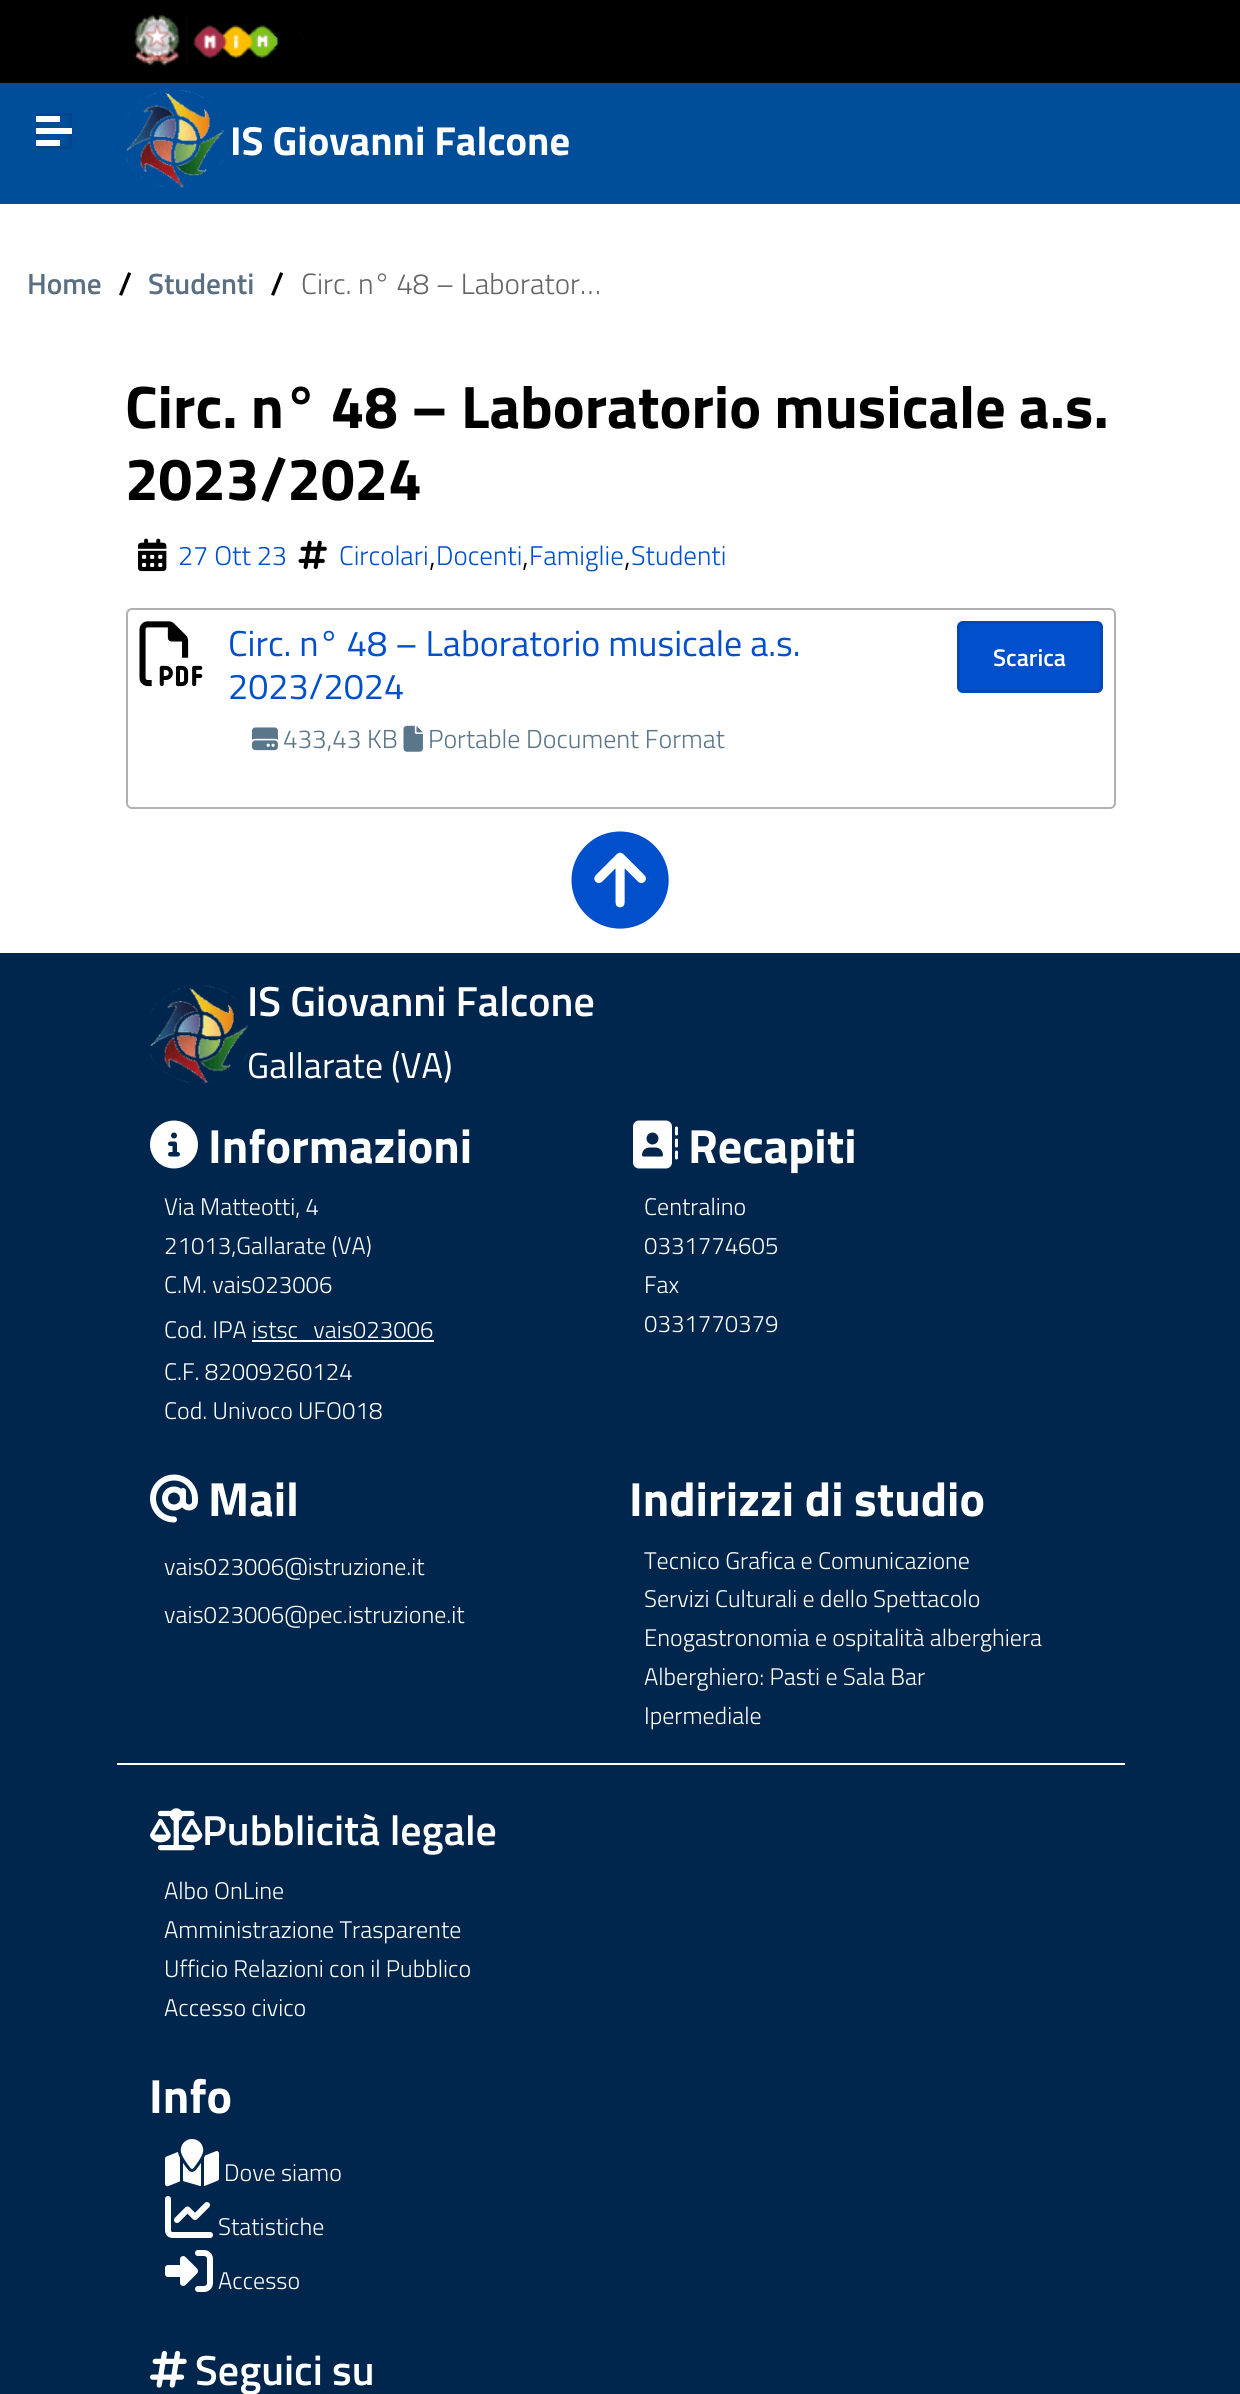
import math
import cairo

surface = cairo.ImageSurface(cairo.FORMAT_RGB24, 1240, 2394)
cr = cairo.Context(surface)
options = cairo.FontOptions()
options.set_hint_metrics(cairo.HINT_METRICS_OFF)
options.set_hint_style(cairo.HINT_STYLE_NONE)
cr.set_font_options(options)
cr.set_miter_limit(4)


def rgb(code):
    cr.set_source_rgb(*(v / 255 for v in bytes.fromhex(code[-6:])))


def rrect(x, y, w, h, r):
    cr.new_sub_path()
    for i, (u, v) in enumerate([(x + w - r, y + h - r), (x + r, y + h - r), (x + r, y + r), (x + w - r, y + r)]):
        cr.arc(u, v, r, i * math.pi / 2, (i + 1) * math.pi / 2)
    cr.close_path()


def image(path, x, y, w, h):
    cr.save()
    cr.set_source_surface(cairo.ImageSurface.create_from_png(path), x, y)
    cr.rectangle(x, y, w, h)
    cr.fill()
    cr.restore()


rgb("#ffffff")
cr.paint()
rgb("#004d99")
cr.rectangle(0, 83, 1240, 121)
cr.fill()
rgb("#000000")
cr.rectangle(0, 0, 1240, 83)
cr.fill()
image("img/1.png", 134, 14, 171, 52)
cr.rectangle(37.5, 114.5, 33, 33)
rgb("#00458a")
cr.set_line_width(3)
cr.stroke()
for x, y, w, h, color in [
    (36, 116, 24, 6, "#ffffff"),
    (36, 128, 36, 6, "#ffffff"),
    (36, 140, 24, 6, "#ffffff"),
]:
    rgb(color)
    cr.rectangle(x, y, w, h)
    cr.fill()
image("img/2.png", 126, 90, 98, 98)
image("img/3.png", 138, 538, 29, 34)
image("img/4.png", 298, 540, 29, 29)
rrect(127, 609, 988, 199, 5)
rgb("#b1b1b3")
cr.set_line_width(2)
cr.stroke()
image("img/5.png", 139, 621, 64, 66)
image("img/6.png", 252, 727, 26, 24)
image("img/7.png", 403, 725, 20, 27)
rgb("#004fcb")
rrect(957, 621, 146, 72, 6)
cr.fill()
rrect(958.5, 622.5, 143, 69, 4.5)
cr.set_source_rgba(0, 0, 0, 0.1)
cr.set_line_width(3)
cr.stroke()
image("img/8.png", 571, 831, 98, 98)
rgb("#00264d")
cr.rectangle(0, 953, 1240, 1441)
cr.fill()
image("img/9.png", 150, 985, 98, 98)
image("img/10.png", 150, 1120, 48, 49)
rgb("#ffffff")
cr.rectangle(252, 1340, 182, 2)
cr.fill()
image("img/11.png", 633, 1120, 45, 49)
image("img/12.png", 150, 1474, 48, 49)
cr.rectangle(117, 1763, 1008, 2)
cr.fill()
image("img/13.png", 150, 1808, 53, 43)
image("img/14.png", 165, 2139, 54, 48)
image("img/15.png", 165, 2196, 48, 42)
image("img/16.png", 165, 2250, 48, 42)
image("img/17.png", 150, 2350, 37, 38)
cr.select_font_face("Titillium Web", cairo.FONT_SLANT_NORMAL, cairo.FONT_WEIGHT_BOLD)
cr.set_font_size(40.5)
cr.move_to(230, 155)
cr.show_text("IS Giovanni Falcone")
cr.select_font_face("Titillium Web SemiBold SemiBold")
cr.set_font_size(29.25)
rgb("#5b6f82")
cr.move_to(27, 294)
cr.show_text("Home")
cr.set_font_size(32)
rgb("#000000")
cr.move_to(118, 295)
cr.show_text("/")
cr.set_font_size(29.25)
rgb("#5b6f82")
cr.move_to(148, 294)
cr.show_text("Studenti")
cr.set_font_size(32)
rgb("#000000")
cr.move_to(270, 295)
cr.show_text("/")
cr.select_font_face("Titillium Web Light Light")
cr.set_font_size(29.25)
rgb("#656566")
cr.move_to(301, 294)
cr.show_text("Circ. n° 48 – Laborator…")
cr.select_font_face("Titillium Web", cairo.FONT_SLANT_NORMAL, cairo.FONT_WEIGHT_BOLD)
cr.set_font_size(60)
rgb("#000000")
cr.move_to(125, 428)
cr.show_text("Circ. n° 48 – Laboratorio musicale a.s.")
cr.move_to(125, 500)
cr.show_text("2023/2024")
cr.select_font_face("Titillium Web Light Light")
cr.set_font_size(27)
rgb("#004fcb")
cr.move_to(178, 565)
cr.show_text("27 Ott 23")
cr.move_to(339, 565)
cr.show_text("Circolari")
cr.set_font_size(32)
rgb("#000000")
cr.move_to(429, 566)
cr.show_text(",")
cr.set_font_size(27)
rgb("#004fcb")
cr.move_to(436, 565)
cr.show_text("Docenti")
cr.set_font_size(32)
rgb("#000000")
cr.move_to(522, 566)
cr.show_text(",")
cr.set_font_size(27)
rgb("#004fcb")
cr.move_to(529, 565)
cr.show_text("Famiglie")
cr.set_font_size(32)
rgb("#000000")
cr.move_to(624, 566)
cr.show_text(",")
cr.set_font_size(27)
rgb("#004fcb")
cr.move_to(631, 565)
cr.show_text("Studenti")
cr.select_font_face("Titillium Web")
cr.set_font_size(36)
cr.move_to(228, 656)
cr.show_text("Circ. n° 48 – Laboratorio musicale a.s.")
cr.move_to(228, 699)
cr.show_text("2023/2024")
cr.select_font_face("Titillium Web Light Light")
cr.set_font_size(26)
rgb("#5a768a")
cr.move_to(283, 748)
cr.show_text("433,43 KB")
cr.move_to(428, 748)
cr.show_text("Portable Document Format")
cr.select_font_face("Titillium Web SemiBold SemiBold")
cr.set_font_size(24)
rgb("#ffffff")
cr.move_to(993, 666)
cr.show_text("Scarica")
cr.set_font_size(42)
cr.move_to(247, 1016)
cr.show_text("IS Giovanni Falcone")
cr.select_font_face("Titillium Web")
cr.set_font_size(36)
cr.move_to(247, 1078)
cr.show_text("Gallarate (VA)")
cr.select_font_face("Titillium Web", cairo.FONT_SLANT_NORMAL, cairo.FONT_WEIGHT_BOLD)
cr.set_font_size(48)
cr.move_to(208, 1163)
cr.show_text("Informazioni")
cr.select_font_face("Titillium Web Light Light")
cr.set_font_size(24)
for x, y, s in [
    (164, 1215, "Via Matteotti, 4"),
    (164, 1254, "21013,Gallarate (VA)"),
    (164, 1293, "C.M. vais023006"),
    (164, 1338, "Cod. IPA"),
    (252, 1338, "istsc_vais023006"),
    (164, 1380, "C.F. 82009260124"),
    (164, 1419, "Cod. Univoco UFO018"),
]:
    cr.move_to(x, y)
    cr.show_text(s)
cr.select_font_face("Titillium Web", cairo.FONT_SLANT_NORMAL, cairo.FONT_WEIGHT_BOLD)
cr.set_font_size(48)
cr.move_to(688, 1163)
cr.show_text("Recapiti")
cr.select_font_face("Titillium Web Light Light")
cr.set_font_size(24)
for x, y, s in [
    (644, 1215, "Centralino"),
    (644, 1254, "0331774605"),
    (644, 1293, "Fax"),
    (644, 1332, "0331770379"),
]:
    cr.move_to(x, y)
    cr.show_text(s)
cr.select_font_face("Titillium Web", cairo.FONT_SLANT_NORMAL, cairo.FONT_WEIGHT_BOLD)
cr.set_font_size(48)
cr.move_to(208, 1516)
cr.show_text("Mail")
cr.select_font_face("Titillium Web Light Light")
cr.set_font_size(24)
cr.move_to(164, 1575)
cr.show_text("vais023006@istruzione.it")
cr.move_to(164, 1623)
cr.show_text("vais023006@pec.istruzione.it")
cr.select_font_face("Titillium Web", cairo.FONT_SLANT_NORMAL, cairo.FONT_WEIGHT_BOLD)
cr.set_font_size(48)
cr.move_to(629, 1516)
cr.show_text("Indirizzi di studio")
cr.select_font_face("Titillium Web Light Light")
cr.set_font_size(24)
for x, y, s in [
    (644, 1569, "Tecnico Grafica e Comunicazione"),
    (644, 1607, "Servizi Culturali e dello Spettacolo"),
    (644, 1646, "Enogastronomia e ospitalità alberghiera"),
    (644, 1685, "Alberghiero: Pasti e Sala Bar"),
    (644, 1724, "Ipermediale"),
]:
    cr.move_to(x, y)
    cr.show_text(s)
cr.select_font_face("Titillium Web SemiBold SemiBold")
cr.set_font_size(42)
cr.move_to(202, 1845)
cr.show_text("Pubblicità legale")
cr.select_font_face("Titillium Web Light Light")
cr.set_font_size(24)
for x, y, s in [
    (164, 1899, "Albo OnLine"),
    (164, 1938, "Amministrazione Trasparente"),
    (164, 1977, "Ufficio Relazioni con il Pubblico"),
    (164, 2016, "Accesso civico"),
]:
    cr.move_to(x, y)
    cr.show_text(s)
cr.select_font_face("Titillium Web", cairo.FONT_SLANT_NORMAL, cairo.FONT_WEIGHT_BOLD)
cr.set_font_size(48)
cr.move_to(149, 2113)
cr.show_text("Info")
cr.select_font_face("Titillium Web Light Light")
cr.set_font_size(24)
for x, y, s in [
    (224, 2181, "Dove siamo"),
    (218, 2235, "Statistiche"),
    (218, 2289, "Accesso"),
]:
    cr.move_to(x, y)
    cr.show_text(s)
cr.select_font_face("Titillium Web SemiBold SemiBold")
cr.set_font_size(42)
cr.move_to(195, 2385)
cr.show_text("Seguici su")
surface.write_to_png("page.png")
